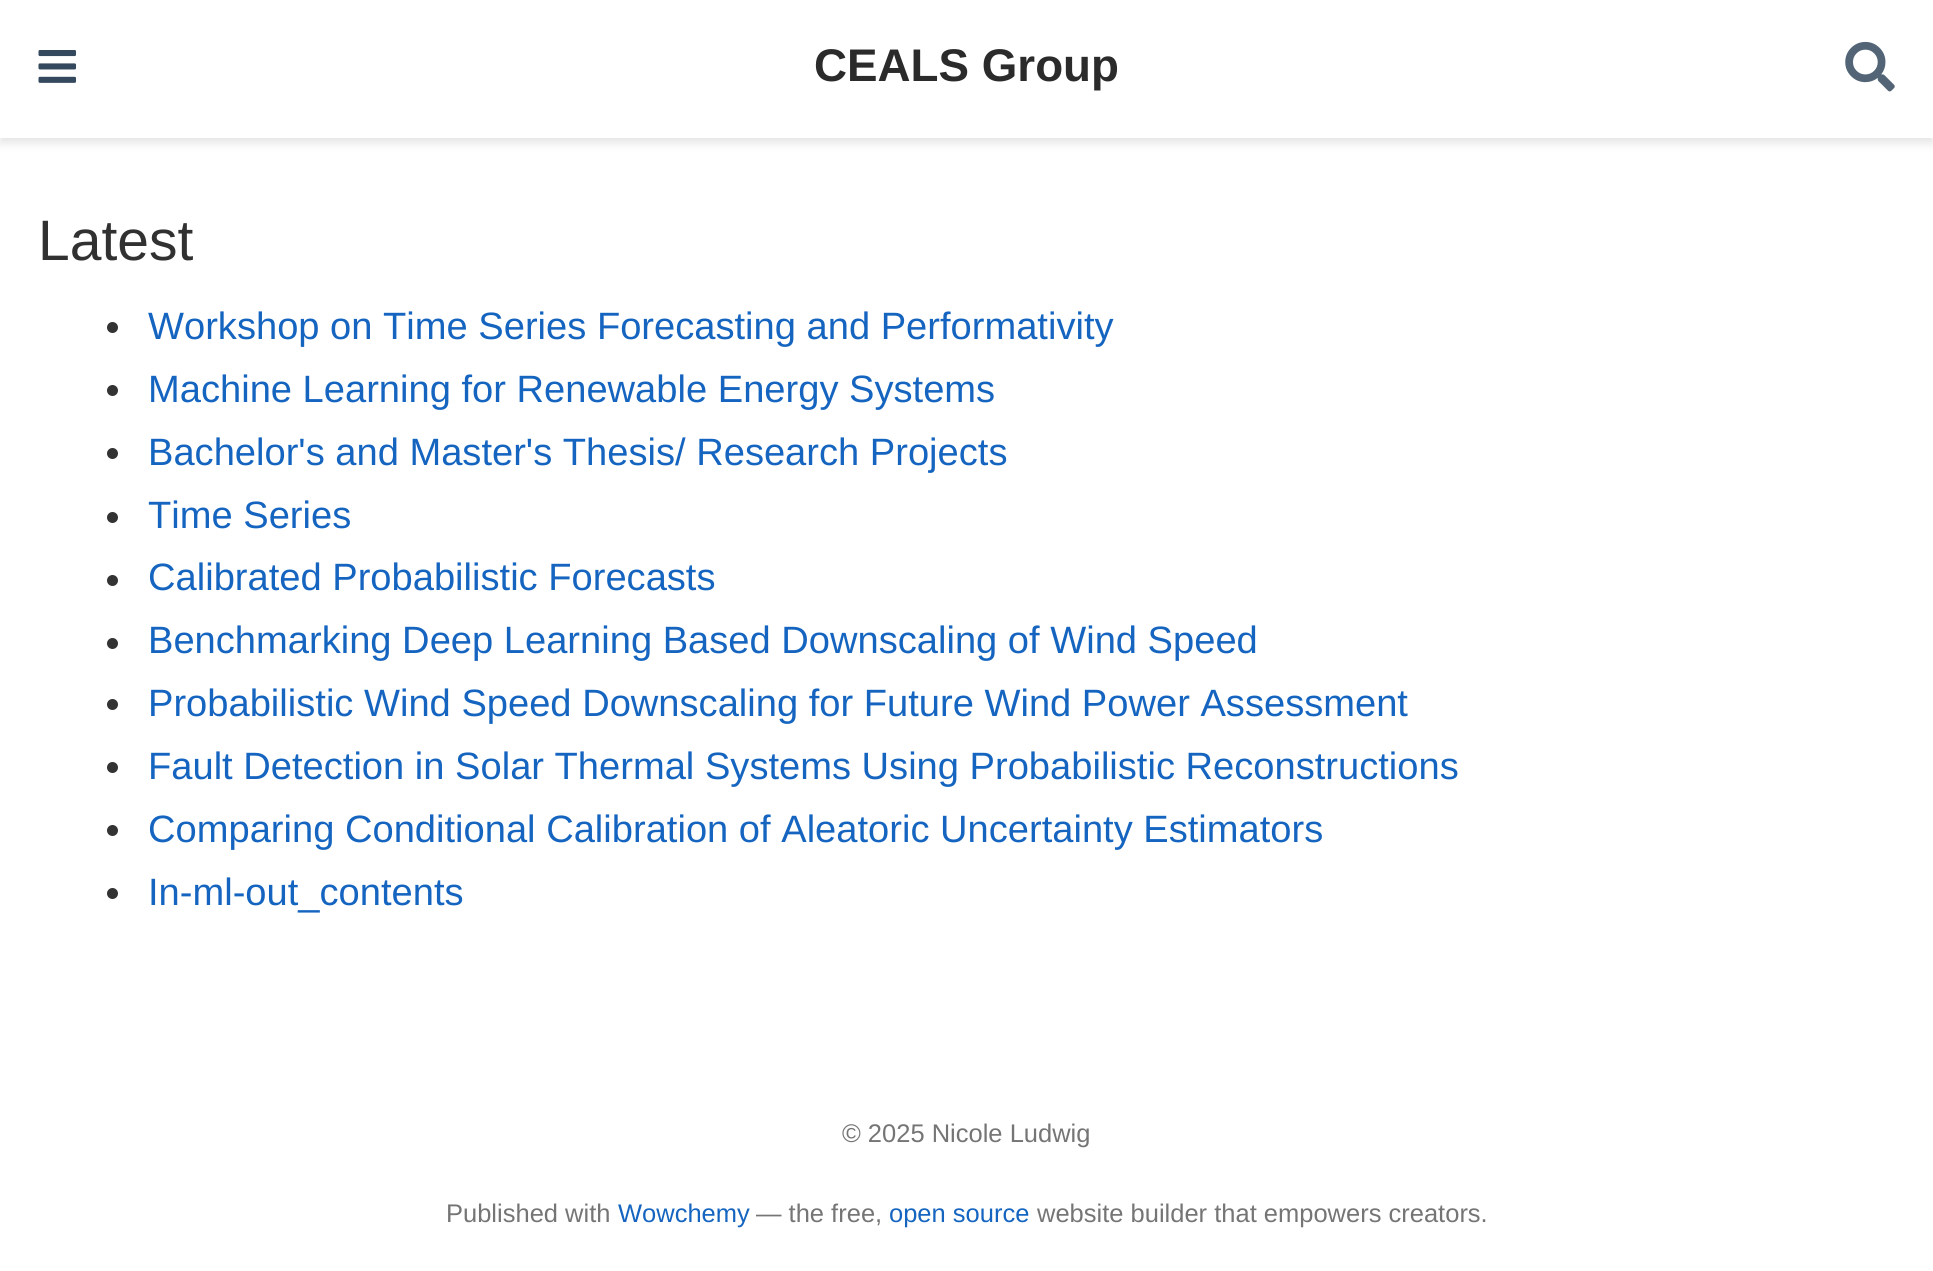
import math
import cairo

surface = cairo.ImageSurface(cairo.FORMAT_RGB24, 1933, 1271)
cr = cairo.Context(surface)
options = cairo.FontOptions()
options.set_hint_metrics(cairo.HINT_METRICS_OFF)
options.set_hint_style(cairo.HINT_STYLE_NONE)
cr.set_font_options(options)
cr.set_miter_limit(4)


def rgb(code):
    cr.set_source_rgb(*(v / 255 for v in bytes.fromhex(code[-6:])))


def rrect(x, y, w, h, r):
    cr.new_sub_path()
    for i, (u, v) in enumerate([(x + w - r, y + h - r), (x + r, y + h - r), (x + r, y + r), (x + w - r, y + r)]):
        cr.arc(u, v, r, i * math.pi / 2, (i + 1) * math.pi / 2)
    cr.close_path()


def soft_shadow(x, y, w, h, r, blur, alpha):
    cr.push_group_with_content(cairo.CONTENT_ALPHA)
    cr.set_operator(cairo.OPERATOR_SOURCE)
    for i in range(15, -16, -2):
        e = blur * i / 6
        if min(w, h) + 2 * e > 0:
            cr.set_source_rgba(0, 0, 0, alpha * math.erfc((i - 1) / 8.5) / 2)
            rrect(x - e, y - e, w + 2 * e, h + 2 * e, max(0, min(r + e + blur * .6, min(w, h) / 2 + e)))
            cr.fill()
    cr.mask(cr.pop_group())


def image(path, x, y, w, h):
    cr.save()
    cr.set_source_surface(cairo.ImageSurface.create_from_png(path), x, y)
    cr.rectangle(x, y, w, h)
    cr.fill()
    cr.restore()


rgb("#ffffff")
cr.paint()
rgb("#000000")
soft_shadow(0, 6, 1933, 137, 0, 5, 0.11)
rgb("#ffffff")
cr.rectangle(0, 0, 1933, 138)
cr.fill()
image("img/1.png", 38, 50, 38, 33)
image("img/2.png", 1845, 41, 50, 51)
rgb("#333333")
cr.arc(112.5, 327.5, 5.5, 0, 2 * math.pi)
cr.fill()
cr.arc(112.5, 390.5, 5.5, 0, 2 * math.pi)
cr.fill()
cr.arc(112.5, 453.5, 5.5, 0, 2 * math.pi)
cr.fill()
cr.arc(112.5, 517.5, 5.5, 0, 2 * math.pi)
cr.fill()
cr.arc(112.5, 580.5, 5.5, 0, 2 * math.pi)
cr.fill()
cr.arc(112.5, 643.5, 5.5, 0, 2 * math.pi)
cr.fill()
cr.arc(112.5, 704.5, 5.5, 0, 2 * math.pi)
cr.fill()
cr.arc(112.5, 767.5, 5.5, 0, 2 * math.pi)
cr.fill()
cr.arc(112.5, 830.5, 5.5, 0, 2 * math.pi)
cr.fill()
cr.arc(112.5, 893.5, 5.5, 0, 2 * math.pi)
cr.fill()
cr.select_font_face("Liberation Sans", cairo.FONT_SLANT_NORMAL, cairo.FONT_WEIGHT_BOLD)
cr.set_font_size(45.75)
rgb("#2b2b2b")
cr.move_to(814, 81)
cr.show_text("CEALS Group")
cr.select_font_face("Liberation Sans")
cr.set_font_size(57)
rgb("#313131")
cr.move_to(38, 260)
cr.show_text("Latest")
cr.set_font_size(38.1)
rgb("#1565c0")
for x, y, s in [
    (148, 339, "Workshop on Time Series Forecasting and Performativity"),
    (148, 402, "Machine Learning for Renewable Energy Systems"),
    (148, 465, "Bachelor's and Master's Thesis/ Research Projects"),
    (148, 528, "Time Series"),
    (148, 590, "Calibrated Probabilistic Forecasts"),
    (148, 653, "Benchmarking Deep Learning Based Downscaling of Wind Speed"),
    (148, 716, "Probabilistic Wind Speed Downscaling for Future Wind Power Assessment"),
    (148, 779, "Fault Detection in Solar Thermal Systems Using Probabilistic Reconstructions"),
    (148, 842, "Comparing Conditional Calibration of Aleatoric Uncertainty Estimators"),
    (148, 905, "In-ml-out_contents"),
]:
    cr.move_to(x, y)
    cr.show_text(s)
cr.set_font_size(25.5)
rgb("#757575")
cr.move_to(842, 1142)
cr.show_text("© 2025 Nicole Ludwig")
cr.move_to(446, 1222)
cr.show_text("Published with")
rgb("#1565c0")
cr.move_to(618, 1222)
cr.show_text("Wowchemy")
rgb("#757575")
cr.move_to(756, 1222)
cr.show_text("— the free,")
rgb("#1565c0")
cr.move_to(889, 1222)
cr.show_text("open source")
rgb("#757575")
cr.move_to(1037, 1222)
cr.show_text("website builder that empowers creators.")
surface.write_to_png("page.png")
